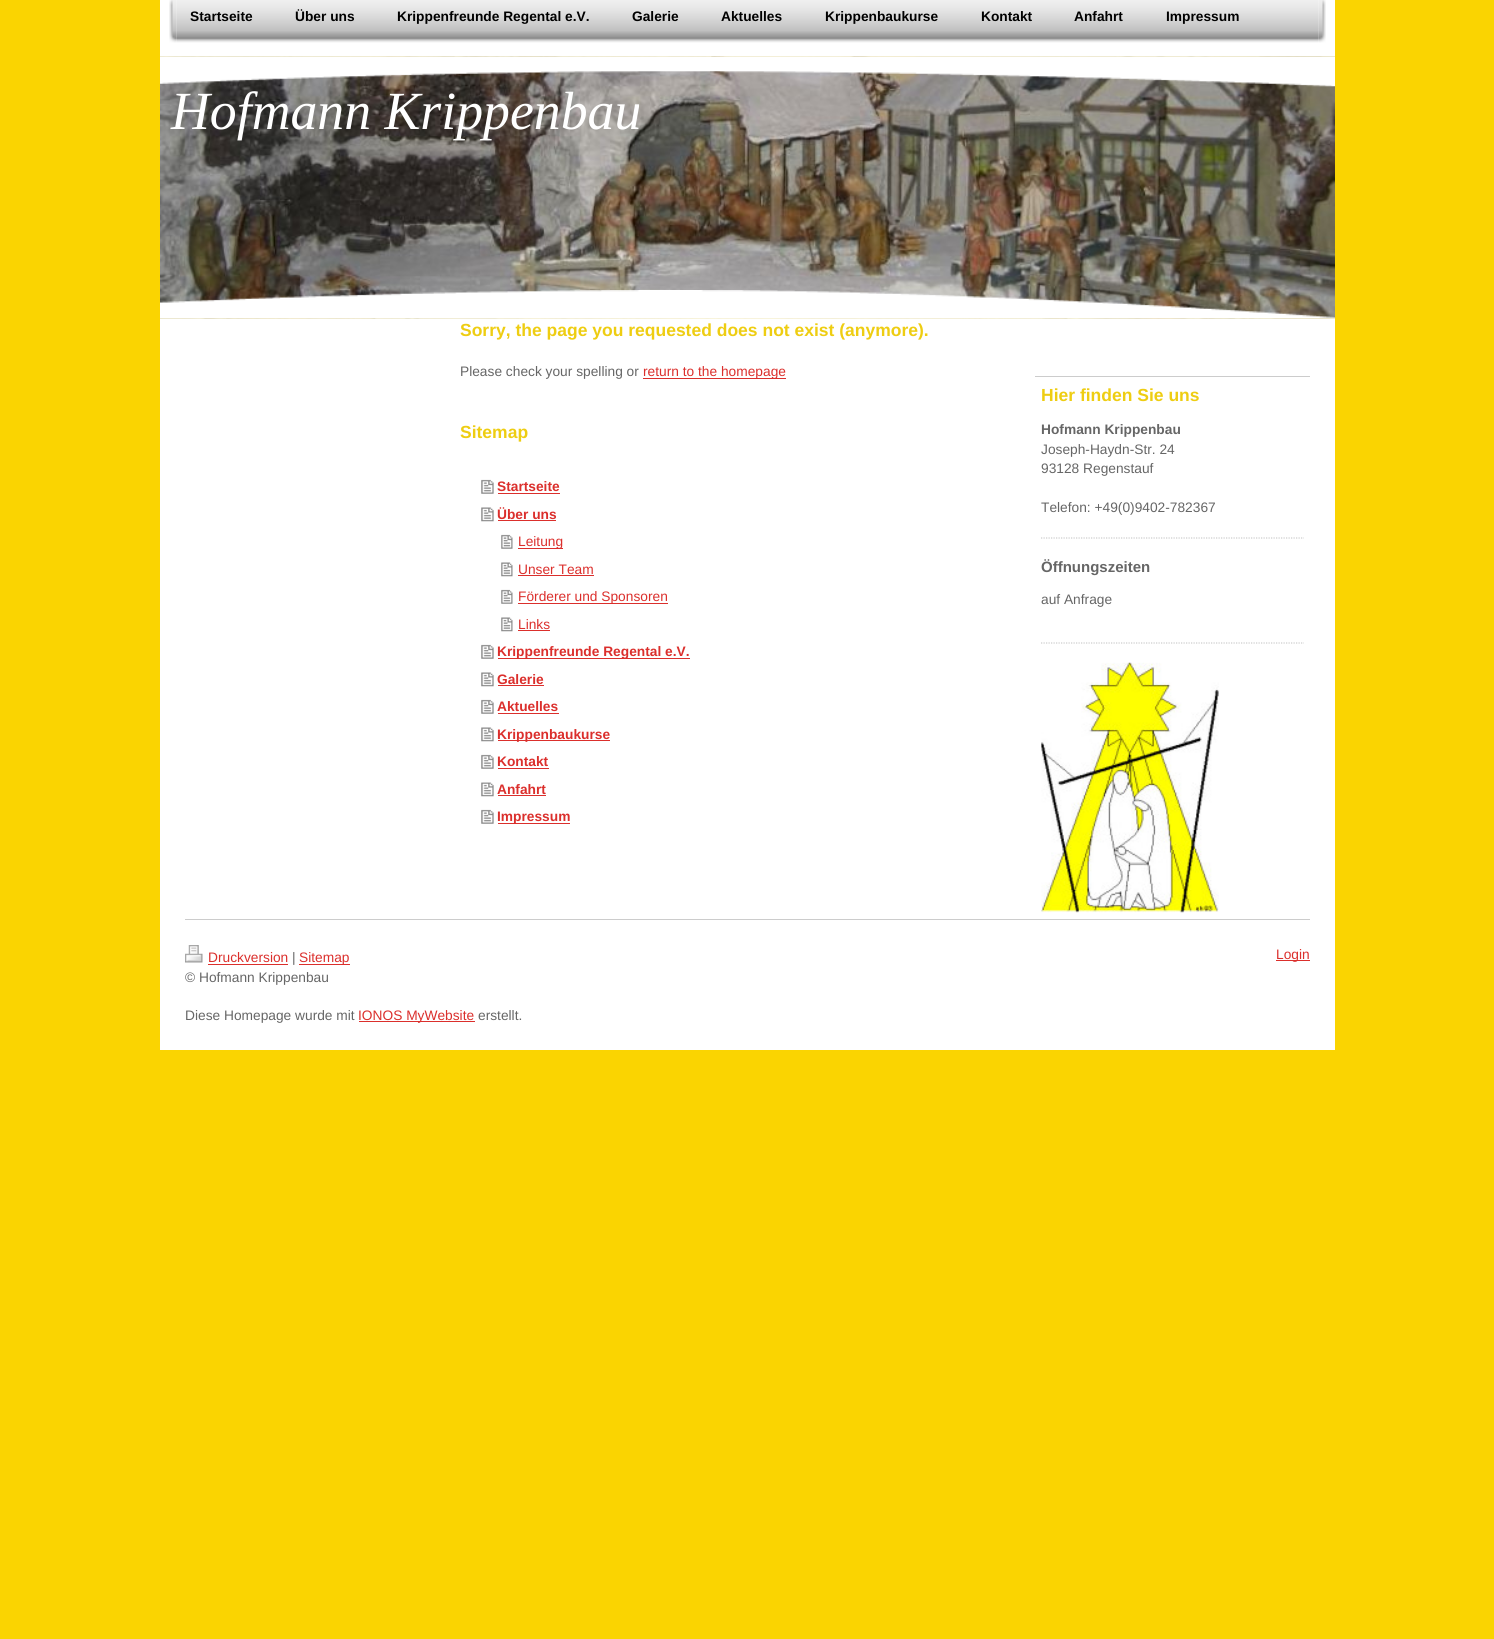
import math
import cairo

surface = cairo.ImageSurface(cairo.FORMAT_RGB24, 1494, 1639)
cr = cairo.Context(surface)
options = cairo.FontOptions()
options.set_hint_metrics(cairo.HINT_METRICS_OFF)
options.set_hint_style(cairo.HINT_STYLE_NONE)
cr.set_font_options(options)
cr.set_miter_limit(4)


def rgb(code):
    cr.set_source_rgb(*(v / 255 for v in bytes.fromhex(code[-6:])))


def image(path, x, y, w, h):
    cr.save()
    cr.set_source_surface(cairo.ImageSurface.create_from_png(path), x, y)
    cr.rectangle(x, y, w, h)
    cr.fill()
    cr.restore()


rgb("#fad401")
cr.paint()
rgb("#ffffff")
cr.rectangle(160, 0, 1175, 56)
cr.fill()
image("img/1.png", 169, 0, 8, 43)
image("img/2.png", 176, 0, 1143, 43)
image("img/3.png", 1318, 0, 8, 43)
image("img/5.png", 160, 56, 1175, 263)
image("img/4.png", 160, 56, 1175, 31)
image("img/6.png", 160, 290, 1175, 29)
cr.rectangle(160, 319, 1175, 731)
cr.fill()
rgb("#db2f2c")
cr.rectangle(643, 378, 143, 1)
cr.fill()
image("img/7.png", 481, 479, 13, 15)
cr.rectangle(498, 493, 62, 1)
cr.fill()
image("img/8.png", 481, 507, 13, 15)
cr.rectangle(498, 520, 58, 1)
cr.fill()
image("img/9.png", 501, 534, 12, 15)
cr.rectangle(518, 548, 45, 1)
cr.fill()
image("img/10.png", 501, 562, 12, 15)
cr.rectangle(518, 575, 76, 1)
cr.fill()
image("img/11.png", 501, 589, 12, 15)
cr.rectangle(518, 603, 150, 1)
cr.fill()
image("img/10.png", 501, 617, 12, 15)
cr.rectangle(518, 630, 32, 1)
cr.fill()
image("img/7.png", 481, 644, 13, 15)
cr.rectangle(498, 658, 192, 1)
cr.fill()
image("img/8.png", 481, 672, 13, 15)
cr.rectangle(498, 685, 46, 1)
cr.fill()
image("img/7.png", 481, 699, 13, 15)
cr.rectangle(498, 713, 61, 1)
cr.fill()
image("img/8.png", 481, 727, 13, 15)
cr.rectangle(498, 740, 112, 1)
cr.fill()
image("img/7.png", 481, 754, 13, 15)
cr.rectangle(498, 768, 51, 1)
cr.fill()
image("img/12.png", 481, 782, 13, 15)
cr.rectangle(498, 795, 48, 1)
cr.fill()
image("img/7.png", 481, 809, 13, 15)
cr.rectangle(498, 823, 72, 1)
cr.fill()
rgb("#cccccc")
cr.rectangle(1035, 376, 275, 1)
cr.fill()
cr.new_path()
cr.move_to(1041, 538)
cr.line_to(1304, 538)
cr.set_line_width(1.2)
cr.set_dash([1.25, 1.25])
cr.stroke()
cr.new_path()
cr.move_to(1041, 643)
cr.line_to(1304, 643)
cr.stroke()
image("img/13.png", 1041, 662, 178, 251)
cr.rectangle(185, 919, 1125, 1)
cr.fill()
image("img/14.png", 185, 945, 18, 18)
for x, y, w, h, color in [
    (208, 964, 80, 1, "#db2f2c"),
    (299, 964, 51, 1, "#db2f2c"),
    (359, 1021, 116, 1, "#db2f2c"),
    (1276, 960, 34, 1, "#db2f2c"),
]:
    rgb(color)
    cr.rectangle(x, y, w, h)
    cr.fill()
cr.select_font_face("Liberation Sans", cairo.FONT_SLANT_NORMAL, cairo.FONT_WEIGHT_BOLD)
cr.set_font_size(13.75)
rgb("#000000")
for x, y, s in [
    (190, 21, "Startseite"),
    (295, 21, "Über uns"),
    (397, 21, "Krippenfreunde Regental e.V."),
    (632, 21, "Galerie"),
    (721, 21, "Aktuelles"),
    (825, 21, "Krippenbaukurse"),
    (981, 21, "Kontakt"),
    (1074, 21, "Anfahrt"),
    (1166, 21, "Impressum"),
]:
    cr.move_to(x, y)
    cr.show_text(s)
cr.select_font_face("Liberation Serif", cairo.FONT_SLANT_ITALIC)
cr.set_font_size(53.75)
rgb("#ffffff")
cr.move_to(171, 129)
cr.show_text("Hofmann Krippenbau")
cr.select_font_face("Liberation Sans", cairo.FONT_SLANT_NORMAL, cairo.FONT_WEIGHT_BOLD)
cr.set_font_size(17.5)
rgb("#eecd12")
cr.move_to(460, 336)
cr.show_text("Sorry, the page you requested does not exist (anymore).")
cr.select_font_face("Liberation Sans")
cr.set_font_size(13.75)
rgb("#666666")
cr.move_to(460, 376)
cr.show_text("Please check your spelling or")
rgb("#db2f2c")
cr.move_to(643, 376)
cr.show_text("return to the homepage")
cr.select_font_face("Liberation Sans", cairo.FONT_SLANT_NORMAL, cairo.FONT_WEIGHT_BOLD)
cr.set_font_size(17.5)
rgb("#eecd12")
cr.move_to(460, 438)
cr.show_text("Sitemap")
cr.set_font_size(13.75)
rgb("#db2f2c")
cr.move_to(497, 491)
cr.show_text("Startseite")
cr.move_to(497, 519)
cr.show_text("Über uns")
cr.select_font_face("Liberation Sans")
for x, y, s in [
    (518, 546, "Leitung"),
    (518, 574, "Unser Team"),
    (518, 601, "Förderer und Sponsoren"),
    (518, 629, "Links"),
]:
    cr.move_to(x, y)
    cr.show_text(s)
cr.select_font_face("Liberation Sans", cairo.FONT_SLANT_NORMAL, cairo.FONT_WEIGHT_BOLD)
for x, y, s in [
    (497, 656, "Krippenfreunde Regental e.V."),
    (497, 684, "Galerie"),
    (497, 711, "Aktuelles"),
    (497, 739, "Krippenbaukurse"),
    (497, 766, "Kontakt"),
    (497, 794, "Anfahrt"),
    (497, 821, "Impressum"),
]:
    cr.move_to(x, y)
    cr.show_text(s)
cr.set_font_size(17.5)
rgb("#eecd12")
cr.move_to(1041, 401)
cr.show_text("Hier finden Sie uns")
cr.set_font_size(13.75)
rgb("#666666")
cr.move_to(1041, 434)
cr.show_text("Hofmann Krippenbau")
cr.select_font_face("Liberation Sans")
for x, y, s in [
    (1041, 454, "Joseph-Haydn-Str. 24"),
    (1041, 473, "93128 Regenstauf"),
    (1041, 512, "Telefon: +49(0)9402-782367"),
]:
    cr.move_to(x, y)
    cr.show_text(s)
cr.select_font_face("Liberation Sans", cairo.FONT_SLANT_NORMAL, cairo.FONT_WEIGHT_BOLD)
cr.set_font_size(15)
cr.move_to(1041, 572)
cr.show_text("Öffnungszeiten")
cr.select_font_face("Liberation Sans")
cr.set_font_size(13.75)
cr.move_to(1041, 604)
cr.show_text("auf Anfrage")
rgb("#db2f2c")
cr.move_to(208, 962)
cr.show_text("Druckversion")
rgb("#666666")
cr.move_to(292, 962)
cr.show_text("|")
rgb("#db2f2c")
cr.move_to(299, 962)
cr.show_text("Sitemap")
rgb("#666666")
cr.move_to(185, 982)
cr.show_text("© Hofmann Krippenbau")
cr.move_to(185, 1020)
cr.show_text("Diese Homepage wurde mit")
rgb("#db2f2c")
cr.move_to(358, 1020)
cr.show_text("IONOS MyWebsite")
rgb("#666666")
cr.move_to(478, 1020)
cr.show_text("erstellt.")
rgb("#db2f2c")
cr.move_to(1276, 959)
cr.show_text("Login")
surface.write_to_png("page.png")
